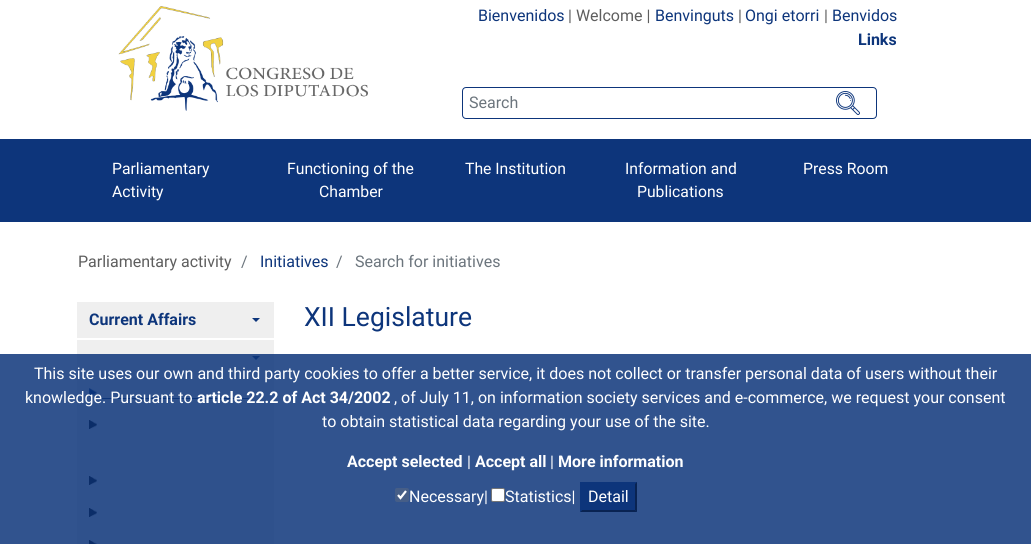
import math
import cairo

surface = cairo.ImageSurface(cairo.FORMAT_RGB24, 1031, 544)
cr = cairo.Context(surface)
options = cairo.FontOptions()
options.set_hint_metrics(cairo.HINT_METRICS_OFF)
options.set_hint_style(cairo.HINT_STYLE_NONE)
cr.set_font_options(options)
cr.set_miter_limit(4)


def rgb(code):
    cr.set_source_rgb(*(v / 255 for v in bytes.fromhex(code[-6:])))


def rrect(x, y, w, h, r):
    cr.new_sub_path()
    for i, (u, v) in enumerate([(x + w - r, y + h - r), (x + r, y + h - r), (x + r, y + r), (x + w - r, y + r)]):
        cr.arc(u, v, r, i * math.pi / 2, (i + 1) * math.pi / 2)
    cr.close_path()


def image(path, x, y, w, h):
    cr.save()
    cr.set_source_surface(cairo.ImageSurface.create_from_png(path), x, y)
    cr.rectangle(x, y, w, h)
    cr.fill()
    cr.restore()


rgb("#ffffff")
cr.paint()
image("img/1.png", 118, 6, 250, 105)
rrect(462.5, 87.5, 414, 31, 3.5)
rgb("#0d357b")
cr.set_line_width(1)
cr.stroke()
image("img/2.png", 836, 91, 24, 24)
cr.rectangle(0, 139, 1031, 83)
cr.fill()
rgb("#efefef")
cr.rectangle(77, 302, 197, 36)
cr.fill()
rgb("#0d357b")
cr.new_path()
cr.move_to(252, 318)
cr.line_to(260, 318)
cr.line_to(256, 322)
cr.close_path()
cr.fill()
rgb("#efefef")
cr.rectangle(77, 340, 197, 204)
cr.fill()
rgb("#0d357b")
cr.new_path()
cr.move_to(252, 356)
cr.line_to(260, 356)
cr.line_to(256, 360)
cr.close_path()
cr.fill()
image("img/3.png", 89, 388, 8, 9)
cr.rectangle(101, 398, 148, 1)
cr.fill()
image("img/4.png", 89, 420, 8, 9)
image("img/4.png", 89, 476, 8, 9)
image("img/4.png", 89, 508, 8, 9)
image("img/5.png", 89, 540, 8, 4)
cr.set_source_rgba(0.051, 0.208, 0.482, 0.85)
cr.rectangle(0, 354, 1031, 190)
cr.fill()
rgb("#465e87")
rrect(395, 488, 14, 14, 2)
cr.fill()
cr.new_path()
cr.move_to(398, 495)
cr.line_to(400.5, 498)
cr.line_to(406, 491)
rgb("#ffffff")
cr.set_line_width(2.2)
cr.stroke()
rrect(491.5, 488.5, 13, 13, 1.5)
cr.fill_preserve()
rgb("#767676")
cr.set_line_width(1)
cr.stroke()
rgb("#0d357b")
cr.rectangle(580, 482, 57, 30)
cr.fill()
rgb("#092352")
cr.new_path()
cr.move_to(637, 482)
cr.line_to(637, 512)
cr.line_to(635, 510)
cr.line_to(635, 484)
cr.close_path()
cr.fill()
cr.new_path()
cr.move_to(637, 512)
cr.line_to(580, 512)
cr.line_to(582, 510)
cr.line_to(635, 510)
cr.close_path()
cr.fill()
rgb("#0d357b")
cr.new_path()
cr.move_to(580, 512)
cr.line_to(580, 482)
cr.line_to(582, 484)
cr.line_to(582, 510)
cr.close_path()
cr.fill()
cr.select_font_face("Roboto")
cr.set_font_size(16)
cr.move_to(478, 21)
cr.show_text("Bienvenidos")
rgb("#5e5e5e")
cr.move_to(568, 21)
cr.show_text("| Welcome |")
rgb("#0d357b")
cr.move_to(655, 21)
cr.show_text("Benvinguts")
rgb("#5e5e5e")
cr.move_to(738, 21)
cr.show_text("|")
rgb("#0d357b")
cr.move_to(745, 21)
cr.show_text("Ongi etorri")
rgb("#5e5e5e")
cr.move_to(824, 21)
cr.show_text("|")
rgb("#0d357b")
cr.move_to(832, 21)
cr.show_text("Benvidos")
cr.select_font_face("Roboto", cairo.FONT_SLANT_NORMAL, cairo.FONT_WEIGHT_BOLD)
cr.move_to(858, 45)
cr.show_text("Links")
cr.select_font_face("Roboto")
rgb("#6c757d")
cr.move_to(469, 108)
cr.show_text("Search")
cr.set_font_size(15.75)
rgb("#ffffff")
for x, y, s in [
    (112, 174, "Parliamentary"),
    (112, 197, "Activity"),
    (287, 174, "Functioning of the"),
    (319, 197, "Chamber"),
    (465, 174, "The Institution"),
    (625, 174, "Information and"),
    (637, 197, "Publications"),
    (803, 174, "Press Room"),
]:
    cr.move_to(x, y)
    cr.show_text(s)
cr.set_font_size(16)
rgb("#5e5e5e")
cr.move_to(78, 267)
cr.show_text("Parliamentary activity")
rgb("#6c757d")
cr.move_to(241, 267)
cr.show_text("/")
rgb("#0d357b")
cr.move_to(260, 267)
cr.show_text("Initiatives")
rgb("#6c757d")
cr.move_to(336, 267)
cr.show_text("/")
cr.move_to(355, 267)
cr.show_text("Search for initiatives")
cr.select_font_face("Roboto", cairo.FONT_SLANT_NORMAL, cairo.FONT_WEIGHT_BOLD)
rgb("#0d357b")
cr.move_to(89, 325)
cr.show_text("Current Affairs")
cr.select_font_face("Roboto")
cr.set_font_size(26.5)
cr.move_to(304, 326)
cr.show_text("XII Legislature")
cr.set_font_size(16)
rgb("#ffffff")
cr.move_to(34, 379)
cr.show_text("This site uses our own and third party cookies to offer a better service, it does not collect or transfer personal data of users without their")
cr.move_to(25, 403)
cr.show_text("knowledge. Pursuant to")
cr.select_font_face("Roboto", cairo.FONT_SLANT_NORMAL, cairo.FONT_WEIGHT_BOLD)
cr.move_to(197, 403)
cr.show_text("article 22.2 of Act 34/2002")
cr.select_font_face("Roboto")
cr.move_to(394, 403)
cr.show_text(", of July 11, on information society services and e-commerce, we request your consent")
cr.move_to(322, 427)
cr.show_text("to obtain statistical data regarding your use of the site.")
cr.select_font_face("Roboto", cairo.FONT_SLANT_NORMAL, cairo.FONT_WEIGHT_BOLD)
cr.move_to(347, 467)
cr.show_text("Accept selected")
cr.select_font_face("Roboto")
cr.move_to(467, 467)
cr.show_text("|")
cr.select_font_face("Roboto", cairo.FONT_SLANT_NORMAL, cairo.FONT_WEIGHT_BOLD)
cr.move_to(475, 467)
cr.show_text("Accept all")
cr.select_font_face("Roboto")
cr.move_to(550, 467)
cr.show_text("|")
cr.select_font_face("Roboto", cairo.FONT_SLANT_NORMAL, cairo.FONT_WEIGHT_BOLD)
cr.move_to(558, 467)
cr.show_text("More information")
cr.select_font_face("Roboto")
for x, y, s in [
    (409, 502, "Necessary|"),
    (505, 502, "Statistics|"),
    (588, 502, "Detail"),
]:
    cr.move_to(x, y)
    cr.show_text(s)
surface.write_to_png("page.png")
